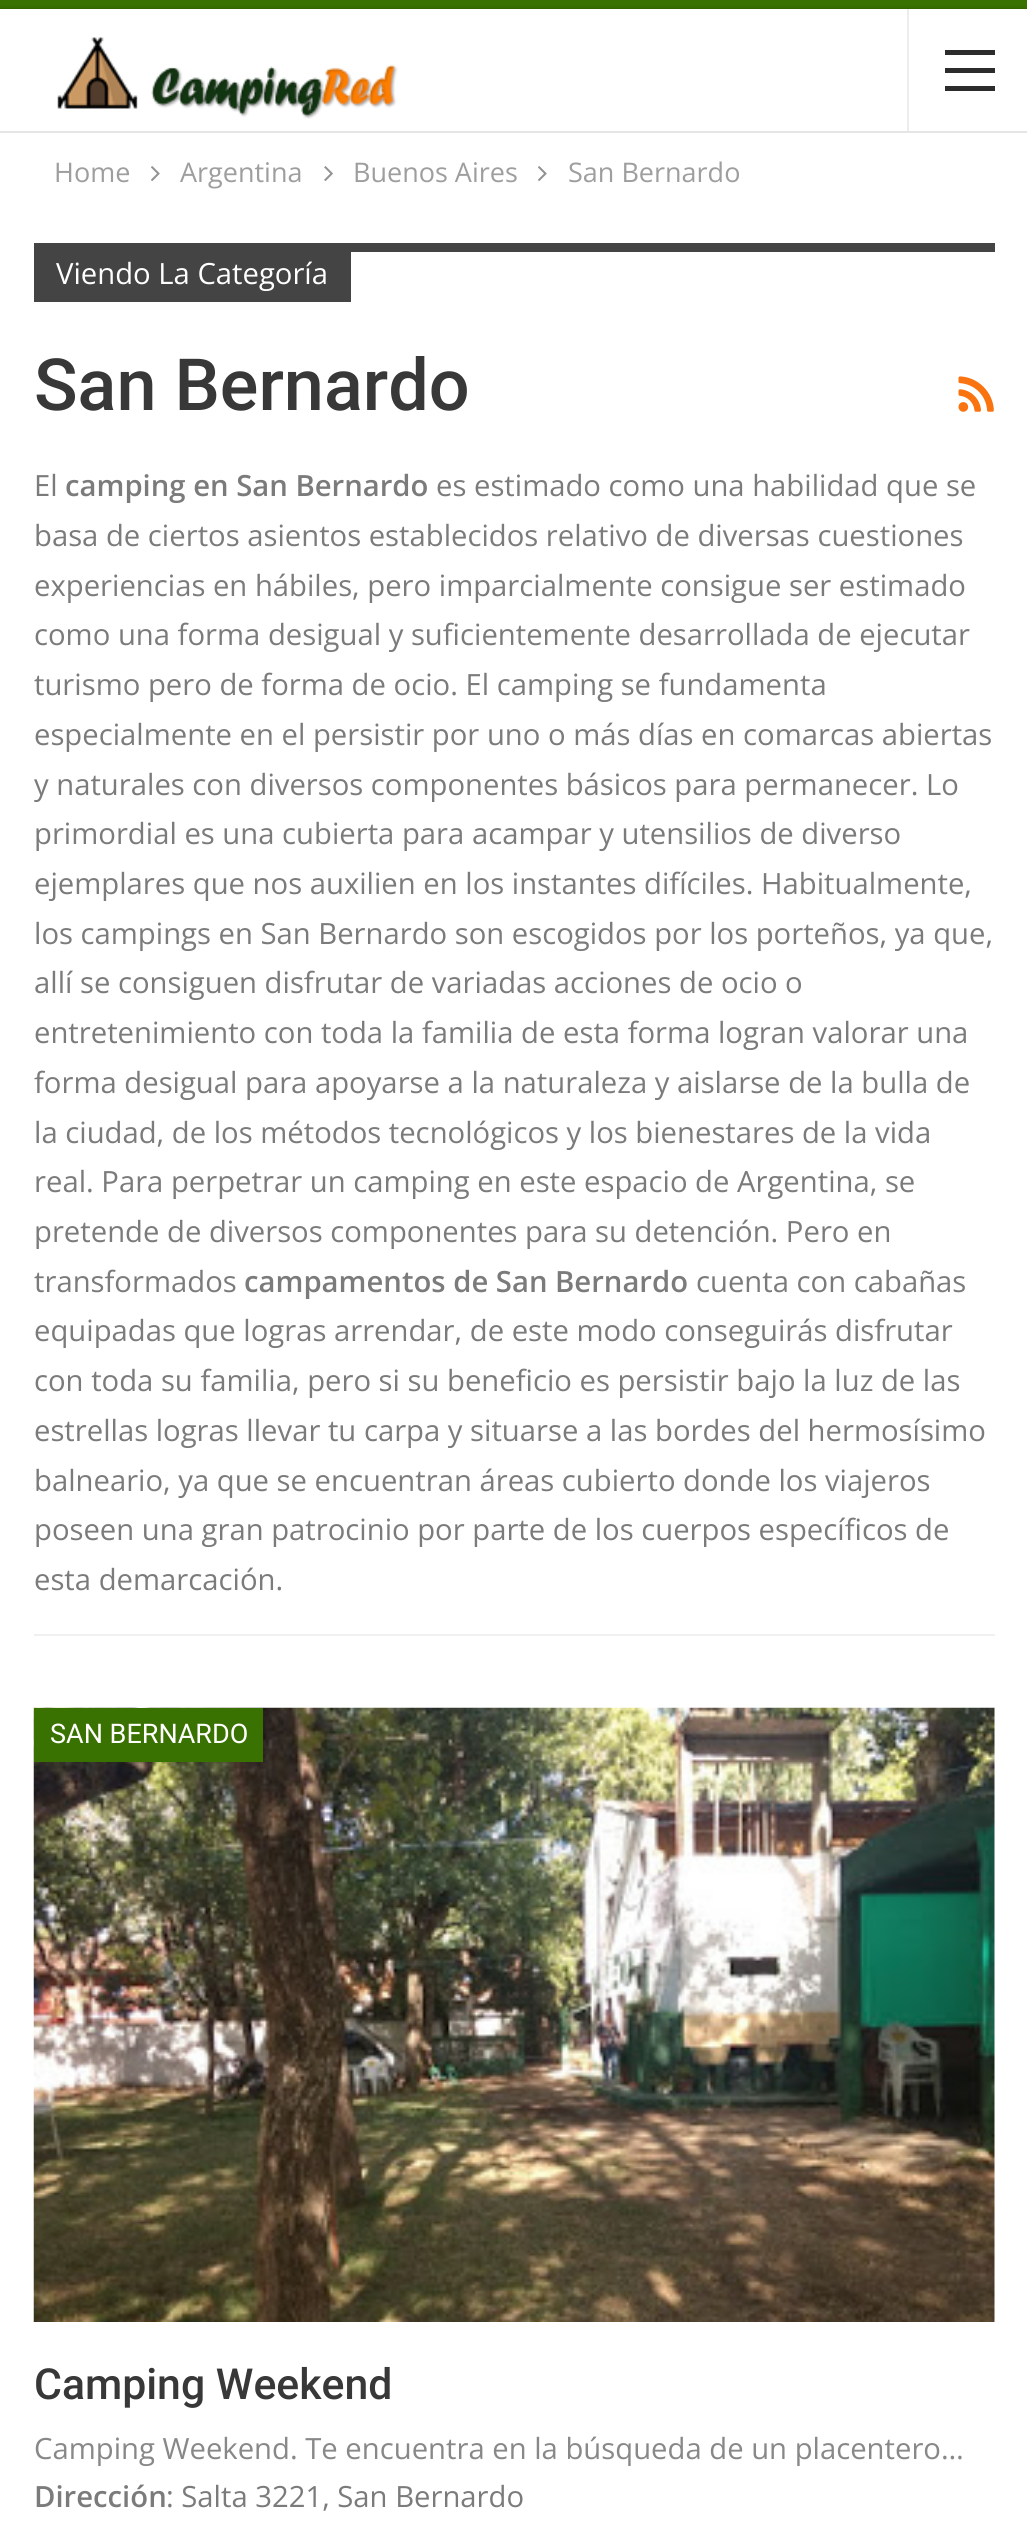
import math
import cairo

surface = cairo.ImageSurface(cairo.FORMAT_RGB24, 1027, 2543)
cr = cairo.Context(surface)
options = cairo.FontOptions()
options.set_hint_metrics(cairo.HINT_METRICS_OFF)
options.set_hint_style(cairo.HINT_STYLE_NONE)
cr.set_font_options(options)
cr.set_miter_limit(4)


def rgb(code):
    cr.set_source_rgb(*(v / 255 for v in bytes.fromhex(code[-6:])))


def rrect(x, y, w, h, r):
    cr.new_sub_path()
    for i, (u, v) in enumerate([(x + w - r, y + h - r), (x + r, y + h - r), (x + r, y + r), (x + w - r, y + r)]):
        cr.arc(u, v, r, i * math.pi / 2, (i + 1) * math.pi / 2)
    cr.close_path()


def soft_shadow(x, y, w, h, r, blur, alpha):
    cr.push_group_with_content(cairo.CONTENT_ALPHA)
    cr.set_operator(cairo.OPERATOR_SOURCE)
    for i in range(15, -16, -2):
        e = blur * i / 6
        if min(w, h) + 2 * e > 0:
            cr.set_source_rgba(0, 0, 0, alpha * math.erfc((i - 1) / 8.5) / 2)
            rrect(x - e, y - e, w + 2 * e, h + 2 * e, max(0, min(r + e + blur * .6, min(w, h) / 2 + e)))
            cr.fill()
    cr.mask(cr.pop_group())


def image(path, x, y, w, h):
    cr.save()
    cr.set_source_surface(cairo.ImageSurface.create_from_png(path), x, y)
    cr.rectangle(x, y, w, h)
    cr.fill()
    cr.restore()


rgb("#397200")
cr.paint()
rgb("#000000")
soft_shadow(0, 9, 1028, 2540, 0, 2, 0.27)
rgb("#ffffff")
cr.rectangle(0, 9, 1027, 2534)
cr.fill()
rgb("#e5e5e5")
cr.rectangle(0, 131, 1027, 2)
cr.fill()
image("img/1.png", 57, 37, 341, 82)
for x, y, w, h, color in [
    (907, 9, 2, 122, "#ededed"),
    (945, 68, 50, 5, "#2c2c2c"),
    (945, 50, 50, 5, "#2c2c2c"),
    (945, 86, 50, 5, "#2c2c2c"),
]:
    rgb(color)
    cr.rectangle(x, y, w, h)
    cr.fill()
image("img/2.png", 151, 166, 9, 15)
image("img/3.png", 324, 166, 9, 15)
image("img/2.png", 538, 166, 9, 15)
for x, y, w, h, color in [
    (34, 1634, 961, 2, "#f0f0f0"),
    (351, 243, 644, 9, "#444444"),
    (34, 243, 317, 59, "#444444"),
]:
    rgb(color)
    cr.rectangle(x, y, w, h)
    cr.fill()
image("img/4.png", 958, 376, 36, 36)
image("img/5.png", 33, 1707, 962, 615)
rgb("#397200")
cr.rectangle(34, 1708, 229, 54)
cr.fill()
cr.select_font_face("Open Sans")
cr.set_font_size(27)
rgb("#9e9e9e")
for x, y, s in [
    (54, 182, "Home"),
    (180, 182, "Argentina"),
    (353, 182, "Buenos Aires"),
    (568, 182, "San Bernardo"),
]:
    cr.move_to(x, y)
    cr.show_text(s)
cr.set_font_size(29.25)
rgb("#ffffff")
cr.move_to(56, 284)
cr.show_text("Viendo La Categoría")
cr.select_font_face("Roboto Medium")
cr.set_font_size(72)
rgb("#383838")
cr.move_to(34, 410)
cr.show_text("San Bernardo")
cr.select_font_face("Open Sans")
cr.set_font_size(29.25)
rgb("#7b7b7b")
cr.move_to(34, 496)
cr.show_text("El")
cr.select_font_face("Open Sans SemiBold")
cr.move_to(65, 496)
cr.show_text("camping en San Bernardo")
cr.select_font_face("Open Sans")
for x, y, s in [
    (436, 496, "es estimado como una habilidad que se"),
    (34, 546, "basa de ciertos asientos establecidos relativo de diversas cuestiones"),
    (34, 596, "experiencias en hábiles, pero imparcialmente consigue ser estimado"),
    (34, 645, "como una forma desigual y suficientemente desarrollada de ejecutar"),
    (34, 695, "turismo pero de forma de ocio. El camping se fundamenta"),
    (34, 745, "especialmente en el persistir por uno o más días en comarcas abiertas"),
    (34, 795, "y naturales con diversos componentes básicos para permanecer. Lo"),
    (34, 844, "primordial es una cubierta para acampar y utensilios de diverso"),
    (34, 894, "ejemplares que nos auxilien en los instantes difíciles. Habitualmente,"),
    (34, 944, "los campings en San Bernardo son escogidos por los porteños, ya que,"),
    (34, 993, "allí se consiguen disfrutar de variadas acciones de ocio o"),
    (34, 1043, "entretenimiento con toda la familia de esta forma logran valorar una"),
    (34, 1093, "forma desigual para apoyarse a la naturaleza y aislarse de la bulla de"),
    (34, 1143, "la ciudad, de los métodos tecnológicos y los bienestares de la vida"),
    (34, 1192, "real. Para perpetrar un camping en este espacio de Argentina, se"),
    (34, 1242, "pretende de diversos componentes para su detención. Pero en"),
    (34, 1292, "transformados"),
]:
    cr.move_to(x, y)
    cr.show_text(s)
cr.select_font_face("Open Sans SemiBold")
cr.move_to(244, 1292)
cr.show_text("campamentos de San Bernardo")
cr.select_font_face("Open Sans")
for x, y, s in [
    (696, 1292, "cuenta con cabañas"),
    (34, 1341, "equipadas que logras arrendar, de este modo conseguirás disfrutar"),
    (34, 1391, "con toda su familia, pero si su beneficio es persistir bajo la luz de las"),
    (34, 1441, "estrellas logras llevar tu carpa y situarse a las bordes del hermosísimo"),
    (34, 1491, "balneario, ya que se encuentran áreas cubierto donde los viajeros"),
    (34, 1540, "poseen una gran patrocinio por parte de los cuerpos específicos de"),
    (34, 1590, "esta demarcación."),
]:
    cr.move_to(x, y)
    cr.show_text(s)
cr.select_font_face("Roboto")
cr.set_font_size(27)
rgb("#ffffff")
cr.move_to(50, 1743)
cr.show_text("SAN BERNARDO")
cr.select_font_face("Roboto Medium")
cr.set_font_size(42.75)
rgb("#383838")
cr.move_to(34, 2399)
cr.show_text("Camping Weekend")
cr.select_font_face("Open Sans")
cr.set_font_size(29.25)
rgb("#888888")
cr.move_to(34, 2459)
cr.show_text("Camping Weekend. Te encuentra en la búsqueda de un placentero…")
cr.select_font_face("Open Sans SemiBold")
rgb("#7b7b7b")
cr.move_to(34, 2507)
cr.show_text("Dirección")
cr.select_font_face("Open Sans")
cr.move_to(166, 2507)
cr.show_text(": Salta 3221, San Bernardo")
surface.write_to_png("page.png")
